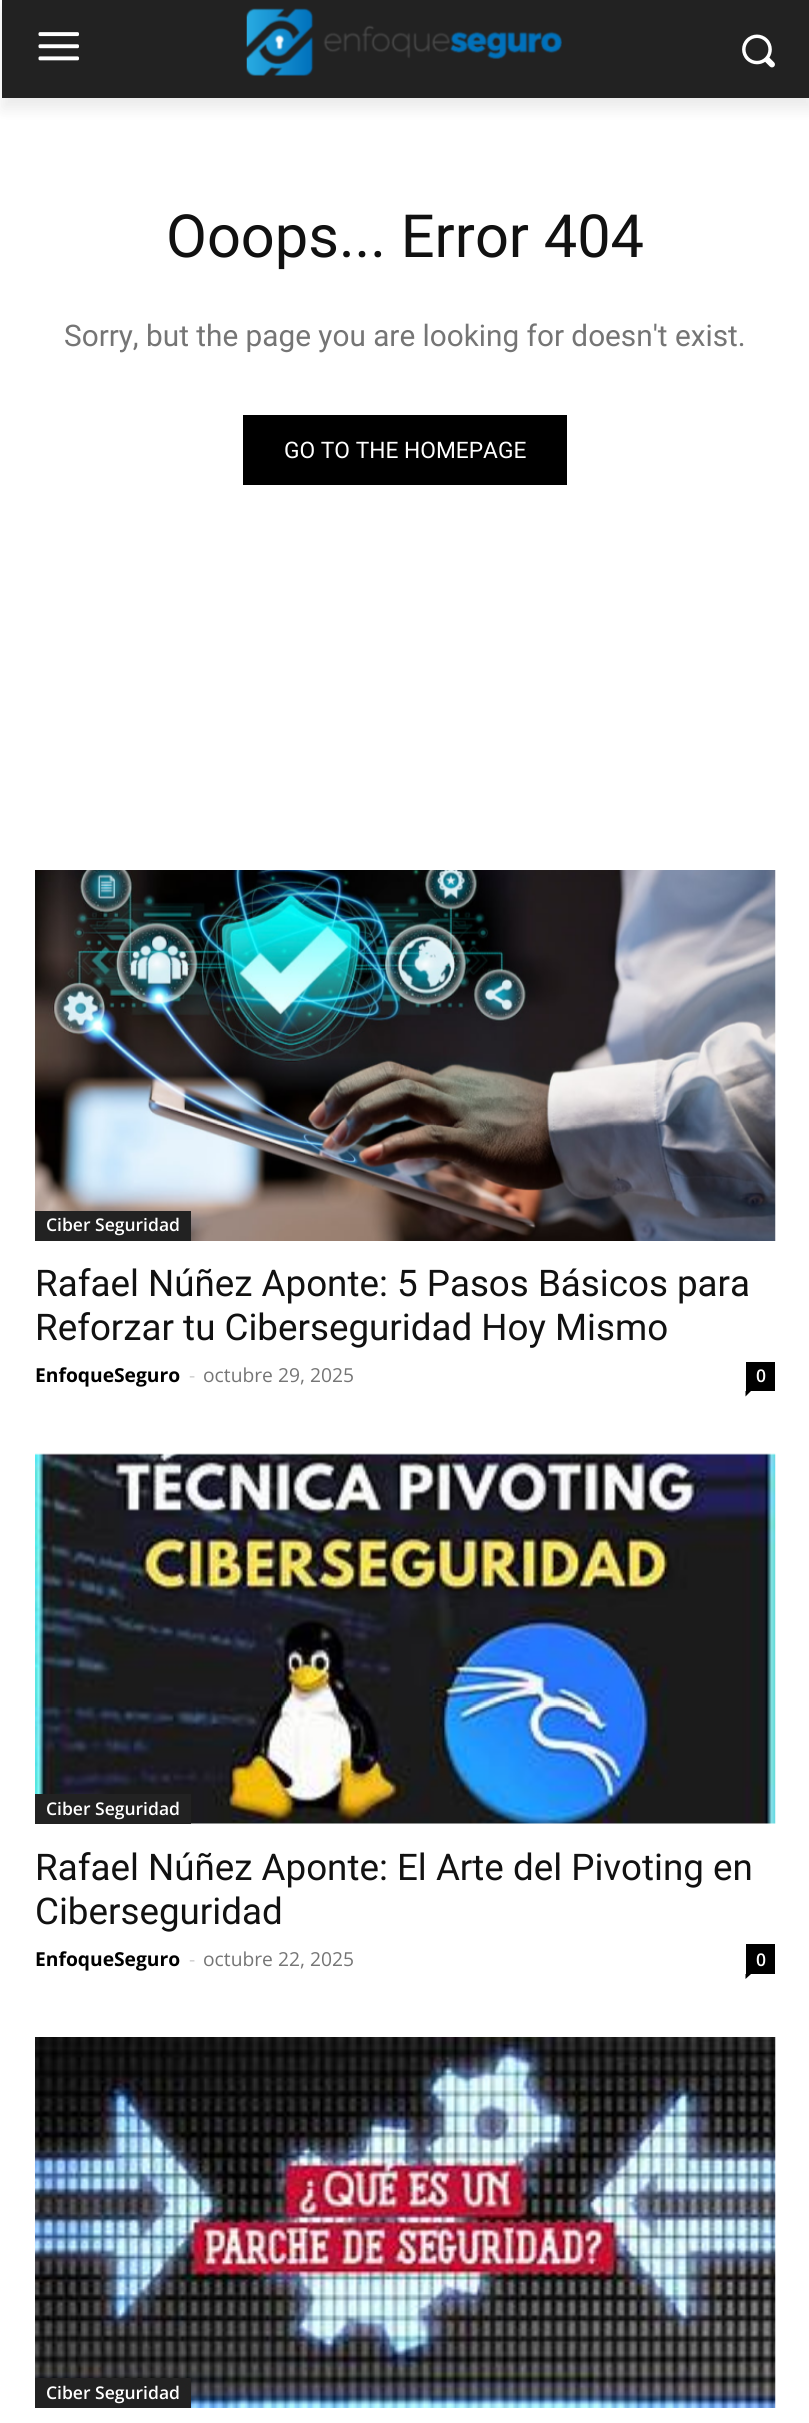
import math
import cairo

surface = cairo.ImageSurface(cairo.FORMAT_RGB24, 809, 2423)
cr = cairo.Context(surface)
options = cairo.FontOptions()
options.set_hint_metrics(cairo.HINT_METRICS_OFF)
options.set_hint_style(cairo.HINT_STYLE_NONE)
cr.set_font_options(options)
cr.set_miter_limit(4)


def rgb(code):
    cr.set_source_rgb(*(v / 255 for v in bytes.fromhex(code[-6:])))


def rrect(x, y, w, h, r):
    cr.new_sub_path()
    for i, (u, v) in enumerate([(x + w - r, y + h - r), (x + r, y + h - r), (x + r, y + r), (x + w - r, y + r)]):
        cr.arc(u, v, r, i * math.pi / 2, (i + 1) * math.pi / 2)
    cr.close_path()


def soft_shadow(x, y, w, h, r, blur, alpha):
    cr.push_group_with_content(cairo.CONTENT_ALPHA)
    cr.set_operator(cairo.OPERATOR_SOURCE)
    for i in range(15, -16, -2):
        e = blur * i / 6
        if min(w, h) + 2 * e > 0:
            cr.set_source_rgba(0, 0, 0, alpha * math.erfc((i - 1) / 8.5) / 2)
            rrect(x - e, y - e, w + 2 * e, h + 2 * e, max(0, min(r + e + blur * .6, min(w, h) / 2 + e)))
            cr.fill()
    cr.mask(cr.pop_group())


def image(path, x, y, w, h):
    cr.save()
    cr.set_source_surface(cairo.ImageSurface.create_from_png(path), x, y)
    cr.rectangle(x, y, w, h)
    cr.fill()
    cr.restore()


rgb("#ffffff")
cr.paint()
rgb("#222222")
cr.rectangle(2, 0, 807, 98)
cr.fill()
image("img/1.png", 38, 32, 41, 29)
image("img/2.png", 246, 8, 316, 68)
image("img/3.png", 742, 34, 33, 34)
cr.save()
cr.set_fill_rule(cairo.FILL_RULE_EVEN_ODD)
cr.new_path()
cr.move_to(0, 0)
cr.line_to(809, 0)
cr.line_to(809, 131)
cr.line_to(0, 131)
cr.close_path()
cr.move_to(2, 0)
cr.line_to(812, 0)
cr.line_to(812, 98)
cr.line_to(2, 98)
cr.close_path()
cr.clip()
rgb("#000000")
soft_shadow(2, 11, 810, 98, 0, 7, 0.08)
cr.restore()
rgb("#000000")
cr.rectangle(243, 415, 324, 70)
cr.fill()
image("img/4.png", 35, 870, 741, 371)
rgb("#222222")
cr.rectangle(35, 1211, 156, 30)
cr.fill()
rgb("#000000")
cr.rectangle(746, 1362, 29, 29)
cr.fill()
cr.new_path()
cr.move_to(745.5, 1391)
cr.line_to(751, 1391)
cr.line_to(745.5, 1396.5)
cr.close_path()
cr.fill()
image("img/5.png", 35, 1453, 741, 371)
rgb("#222222")
cr.rectangle(35, 1794, 156, 30)
cr.fill()
rgb("#000000")
cr.rectangle(746, 1944, 29, 30)
cr.fill()
cr.new_path()
cr.move_to(745.5, 1974)
cr.line_to(751, 1974)
cr.line_to(745.5, 1979)
cr.close_path()
cr.fill()
image("img/6.png", 35, 2037, 741, 371)
rgb("#222222")
cr.rectangle(35, 2378, 156, 30)
cr.fill()
cr.select_font_face("Roboto")
cr.set_font_size(59.5)
rgb("#111111")
cr.move_to(166, 257)
cr.show_text("Ooops... Error 404")
cr.set_font_size(29.75)
rgb("#757575")
cr.move_to(64, 346)
cr.show_text("Sorry, but the page you are looking for doesn't exist.")
cr.set_font_size(22.75)
rgb("#ffffff")
cr.move_to(284, 458)
cr.show_text("GO TO THE HOMEPAGE")
cr.select_font_face("Open Sans SemiBold")
cr.set_font_size(17.5)
cr.move_to(46, 1231)
cr.show_text("Ciber Seguridad")
cr.select_font_face("Roboto")
cr.set_font_size(36.75)
rgb("#111111")
cr.move_to(35, 1296)
cr.show_text("Rafael Núñez Aponte: 5 Pasos Básicos para")
cr.move_to(35, 1340)
cr.show_text("Reforzar tu Ciberseguridad Hoy Mismo")
cr.select_font_face("Open Sans", cairo.FONT_SLANT_NORMAL, cairo.FONT_WEIGHT_BOLD)
cr.set_font_size(19.25)
rgb("#000000")
cr.move_to(35, 1382)
cr.show_text("EnfoqueSeguro")
cr.select_font_face("Open Sans")
rgb("#cccccc")
cr.move_to(189, 1382)
cr.show_text("-")
rgb("#757575")
cr.move_to(203, 1382)
cr.show_text("octubre 29, 2025")
cr.select_font_face("Open Sans SemiBold")
cr.set_font_size(17.5)
rgb("#ffffff")
cr.move_to(756, 1382)
cr.show_text("0")
cr.move_to(46, 1815)
cr.show_text("Ciber Seguridad")
cr.select_font_face("Roboto")
cr.set_font_size(36.75)
rgb("#111111")
cr.move_to(35, 1880)
cr.show_text("Rafael Núñez Aponte: El Arte del Pivoting en")
cr.move_to(35, 1924)
cr.show_text("Ciberseguridad")
cr.select_font_face("Open Sans", cairo.FONT_SLANT_NORMAL, cairo.FONT_WEIGHT_BOLD)
cr.set_font_size(19.25)
rgb("#000000")
cr.move_to(35, 1966)
cr.show_text("EnfoqueSeguro")
cr.select_font_face("Open Sans")
rgb("#cccccc")
cr.move_to(189, 1966)
cr.show_text("-")
rgb("#757575")
cr.move_to(203, 1966)
cr.show_text("octubre 22, 2025")
cr.select_font_face("Open Sans SemiBold")
cr.set_font_size(17.5)
rgb("#ffffff")
cr.move_to(756, 1966)
cr.show_text("0")
cr.move_to(46, 2399)
cr.show_text("Ciber Seguridad")
surface.write_to_png("page.png")
